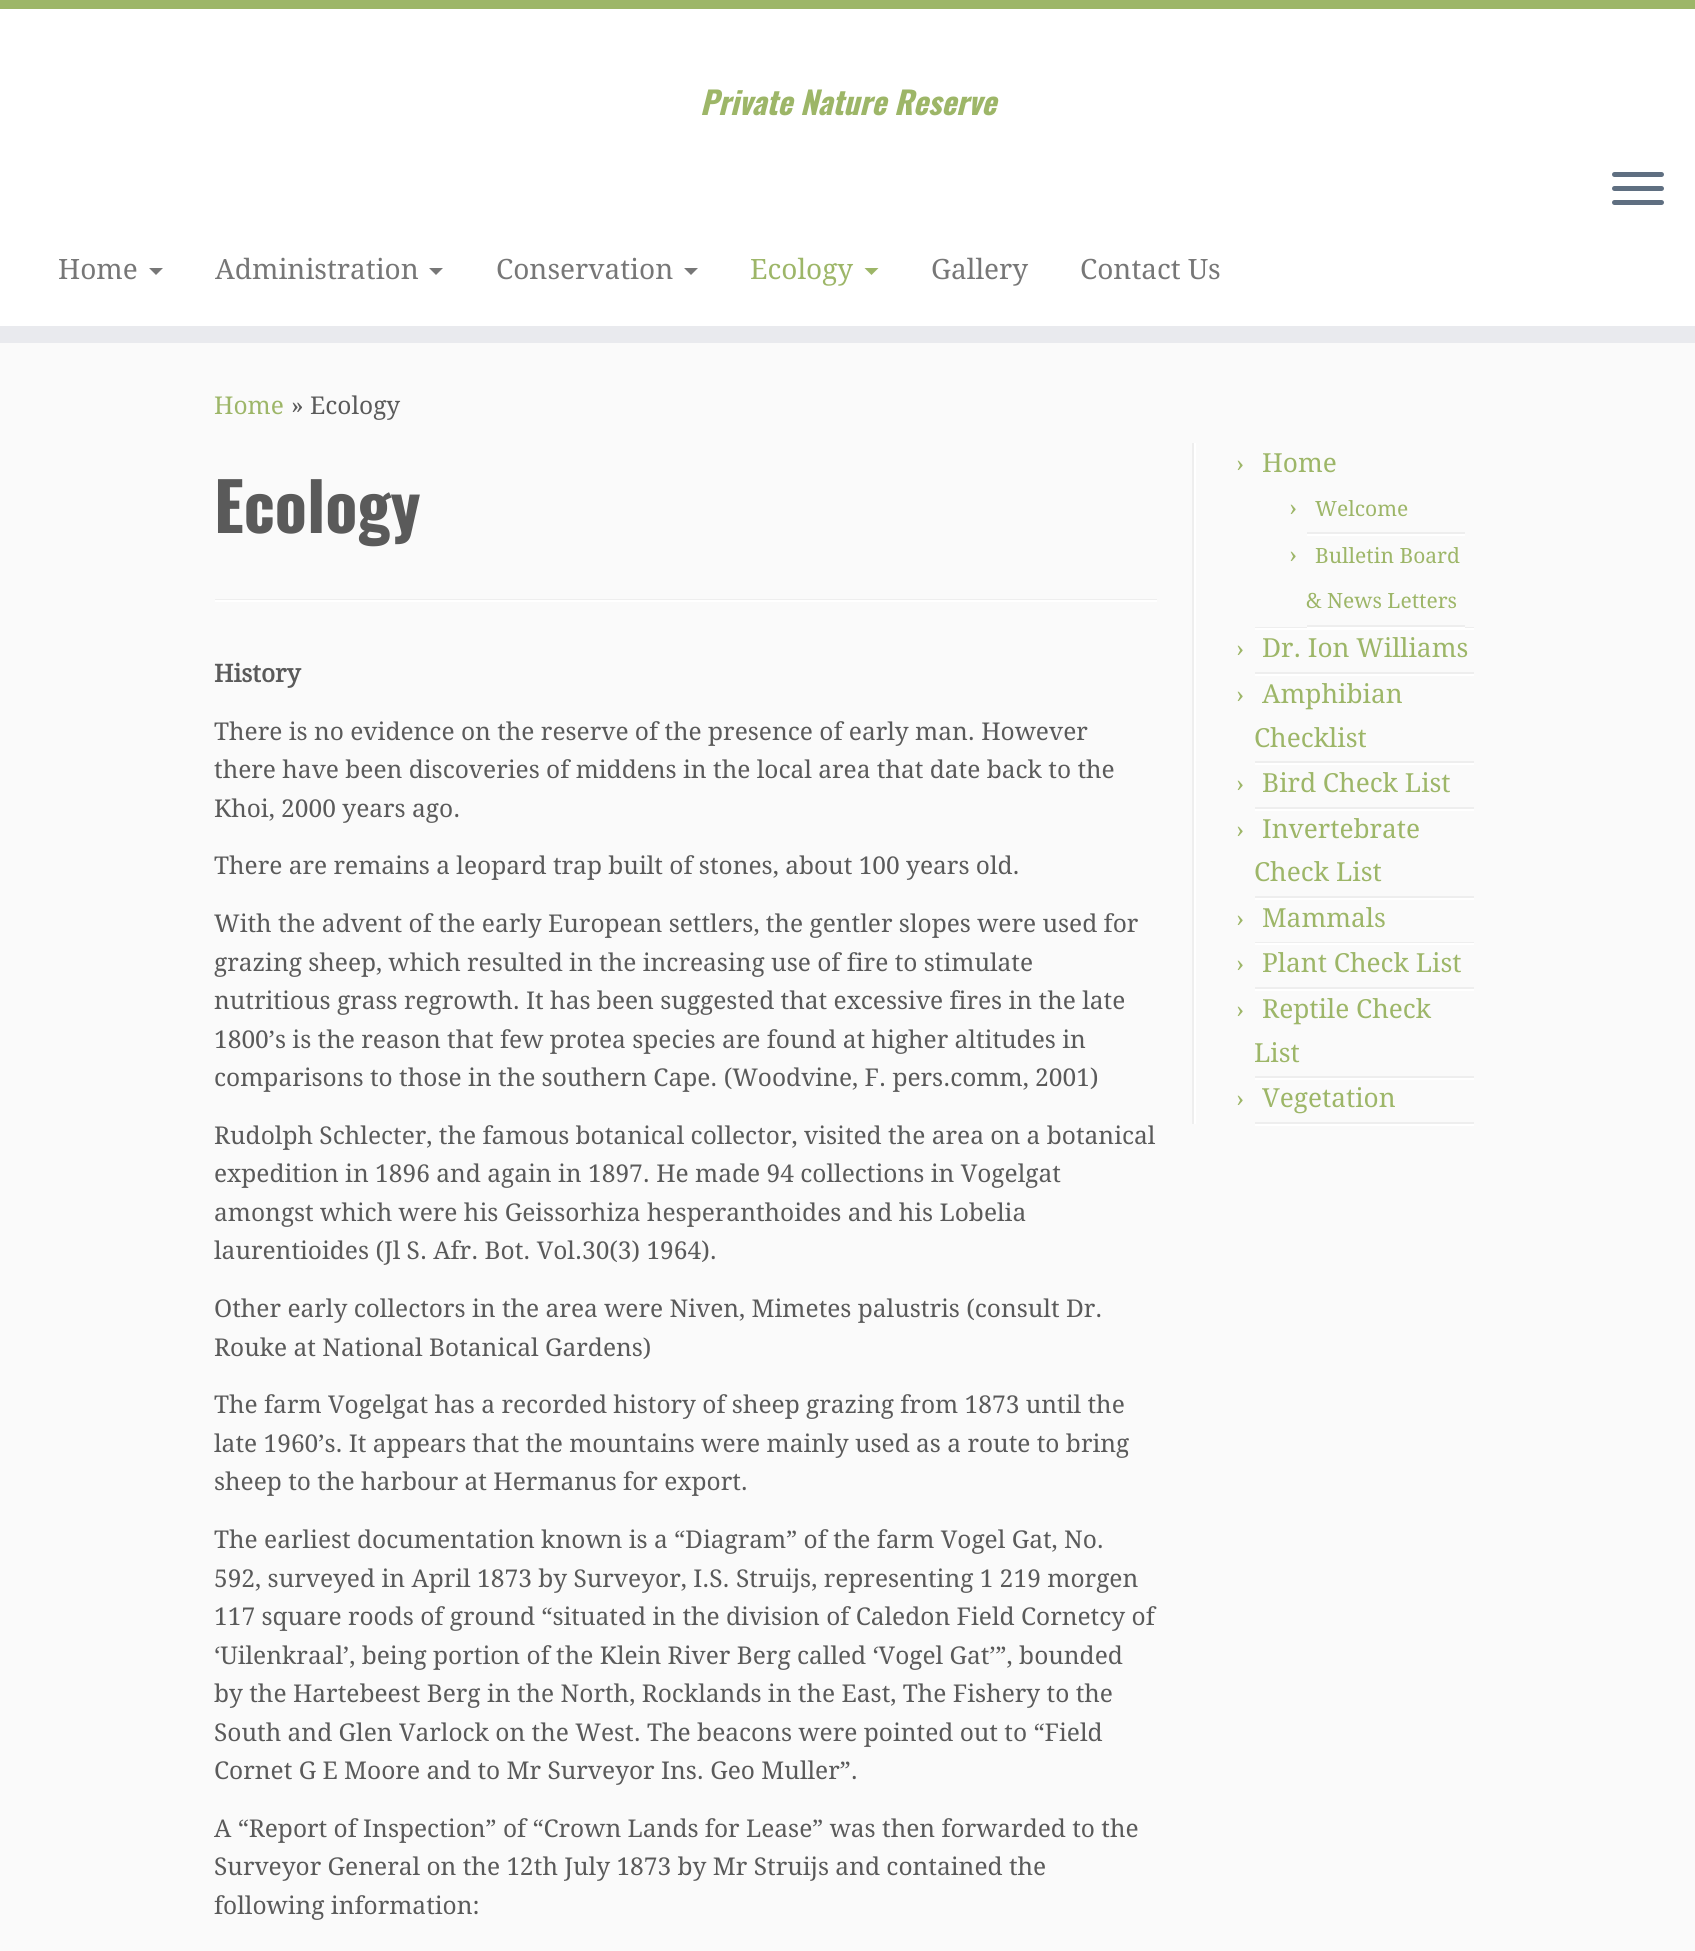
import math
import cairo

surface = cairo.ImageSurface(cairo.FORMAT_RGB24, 1695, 1951)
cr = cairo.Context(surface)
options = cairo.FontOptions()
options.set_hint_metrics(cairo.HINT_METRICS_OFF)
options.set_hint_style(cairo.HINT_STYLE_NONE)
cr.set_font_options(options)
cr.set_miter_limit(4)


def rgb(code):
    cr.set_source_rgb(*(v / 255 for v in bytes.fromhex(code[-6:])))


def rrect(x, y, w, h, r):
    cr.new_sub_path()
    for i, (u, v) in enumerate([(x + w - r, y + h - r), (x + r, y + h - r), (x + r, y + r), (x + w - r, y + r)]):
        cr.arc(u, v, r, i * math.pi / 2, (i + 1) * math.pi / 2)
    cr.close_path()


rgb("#fafafa")
cr.paint()
for x, y, w, h, color in [
    (0, 9, 1695, 317, "#ffffff"),
    (0, 0, 1695, 9, "#9db668"),
    (0, 326, 1695, 17, "#e9eaee"),
]:
    rgb(color)
    cr.rectangle(x, y, w, h)
    cr.fill()
rgb("#5f6f81")
rrect(1612, 172, 52, 5, 2.5)
cr.fill()
rrect(1612, 186, 52, 5, 2.5)
cr.fill()
rrect(1612, 200, 52, 5, 2.5)
cr.fill()
rgb("#777777")
cr.new_path()
cr.move_to(149, 268)
cr.line_to(163, 268)
cr.line_to(156, 275)
cr.close_path()
cr.fill()
cr.new_path()
cr.move_to(429, 268)
cr.line_to(443, 268)
cr.line_to(436, 275)
cr.close_path()
cr.fill()
cr.new_path()
cr.move_to(684, 268)
cr.line_to(698, 268)
cr.line_to(691, 275)
cr.close_path()
cr.fill()
rgb("#9db668")
cr.new_path()
cr.move_to(864.5, 268)
cr.line_to(878.5, 268)
cr.line_to(871.5, 275)
cr.close_path()
cr.fill()
for x, y, w, h, color in [
    (215, 599, 942, 1, "#eeeeee"),
    (215, 600, 942, 2, "#ffffff"),
    (1192, 443, 2, 681, "#eeeeee"),
    (1194, 443, 2, 681, "#ffffff"),
    (1255, 627, 219, 1, "#eeeeee"),
    (1307, 532, 158, 2, "#eeeeee"),
    (1307, 534, 158, 2, "#ffffff"),
    (1307, 625, 158, 2, "#eeeeee"),
    (1307, 627, 158, 1, "#ffffff"),
    (1255, 628, 219, 2, "#ffffff"),
    (1255, 672, 219, 2, "#eeeeee"),
    (1255, 674, 219, 2, "#ffffff"),
    (1255, 761, 219, 2, "#eeeeee"),
    (1255, 763, 219, 2, "#ffffff"),
    (1255, 807, 219, 2, "#eeeeee"),
    (1255, 809, 219, 2, "#ffffff"),
    (1255, 896, 219, 2, "#eeeeee"),
    (1255, 898, 219, 2, "#ffffff"),
    (1255, 942, 219, 1, "#eeeeee"),
    (1255, 943, 219, 2, "#ffffff"),
    (1255, 987, 219, 2, "#eeeeee"),
    (1255, 989, 219, 2, "#ffffff"),
    (1255, 1076, 219, 2, "#eeeeee"),
    (1255, 1078, 219, 2, "#ffffff"),
    (1255, 1122, 219, 2, "#eeeeee"),
    (1255, 1124, 219, 2, "#ffffff"),
]:
    rgb(color)
    cr.rectangle(x, y, w, h)
    cr.fill()
cr.select_font_face("Oswald", cairo.FONT_SLANT_ITALIC, cairo.FONT_WEIGHT_BOLD)
cr.set_font_size(31.5)
rgb("#9db668")
cr.move_to(700, 115)
cr.show_text("Private Nature Reserve")
cr.select_font_face("Droid Serif")
cr.set_font_size(28)
rgb("#777777")
for x, y, s in [
    (58, 279, "Home"),
    (215, 279, "Administration"),
    (496, 279, "Conservation"),
]:
    cr.move_to(x, y)
    cr.show_text(s)
rgb("#9db668")
cr.move_to(750, 279)
cr.show_text("Ecology")
rgb("#777777")
cr.move_to(931, 279)
cr.show_text("Gallery")
cr.move_to(1080, 279)
cr.show_text("Contact Us")
cr.set_font_size(24.5)
rgb("#9db668")
cr.move_to(214, 414)
cr.show_text("Home")
rgb("#5a5a5a")
cr.move_to(291, 414)
cr.show_text("» Ecology")
cr.select_font_face("Oswald", cairo.FONT_SLANT_NORMAL, cairo.FONT_WEIGHT_BOLD)
cr.set_font_size(66.5)
cr.move_to(214, 533)
cr.show_text("Ecology")
cr.select_font_face("Droid Serif", cairo.FONT_SLANT_NORMAL, cairo.FONT_WEIGHT_BOLD)
cr.set_font_size(24.5)
cr.move_to(214, 682)
cr.show_text("History")
cr.select_font_face("Droid Serif")
for x, y, s in [
    (214, 740, "There is no evidence on the reserve of the presence of early man. However"),
    (214, 778, "there have been discoveries of middens in the local area that date back to the"),
    (214, 817, "Khoi, 2000 years ago."),
    (214, 874, "There are remains a leopard trap built of stones, about 100 years old."),
    (214, 932, "With the advent of the early European settlers, the gentler slopes were used for"),
    (214, 971, "grazing sheep, which resulted in the increasing use of fire to stimulate"),
    (214, 1009, "nutritious grass regrowth. It has been suggested that excessive fires in the late"),
    (214, 1048, "1800’s is the reason that few protea species are found at higher altitudes in"),
    (214, 1086, "comparisons to those in the southern Cape. (Woodvine, F. pers.comm, 2001)"),
    (214, 1144, "Rudolph Schlecter, the famous botanical collector, visited the area on a botanical"),
    (214, 1182, "expedition in 1896 and again in 1897. He made 94 collections in Vogelgat"),
    (214, 1221, "amongst which were his Geissorhiza hesperanthoides and his Lobelia"),
    (214, 1259, "laurentioides (Jl S. Afr. Bot. Vol.30(3) 1964)."),
    (214, 1317, "Other early collectors in the area were Niven, Mimetes palustris (consult Dr."),
    (214, 1356, "Rouke at National Botanical Gardens)"),
    (214, 1413, "The farm Vogelgat has a recorded history of sheep grazing from 1873 until the"),
    (214, 1452, "late 1960’s. It appears that the mountains were mainly used as a route to bring"),
    (214, 1490, "sheep to the harbour at Hermanus for export."),
    (214, 1548, "The earliest documentation known is a “Diagram” of the farm Vogel Gat, No."),
    (214, 1587, "592, surveyed in April 1873 by Surveyor, I.S. Struijs, representing 1 219 morgen"),
    (214, 1625, "117 square roods of ground “situated in the division of Caledon Field Cornetcy of"),
    (214, 1664, "‘Uilenkraal’, being portion of the Klein River Berg called ‘Vogel Gat’”, bounded"),
    (214, 1702, "by the Hartebeest Berg in the North, Rocklands in the East, The Fishery to the"),
    (214, 1741, "South and Glen Varlock on the West. The beacons were pointed out to “Field"),
    (214, 1779, "Cornet G E Moore and to Mr Surveyor Ins. Geo Muller”."),
    (214, 1837, "A “Report of Inspection” of “Crown Lands for Lease” was then forwarded to the"),
    (214, 1875, "Surveyor General on the 12th July 1873 by Mr Struijs and contained the"),
    (214, 1914, "following information:"),
]:
    cr.move_to(x, y)
    cr.show_text(s)
rgb("#9db668")
cr.move_to(1236, 472)
cr.show_text("›")
cr.set_font_size(26.25)
cr.move_to(1262, 472)
cr.show_text("Home")
cr.set_font_size(24.5)
cr.move_to(1289, 516)
cr.show_text("›")
cr.set_font_size(21)
cr.move_to(1315, 516)
cr.show_text("Welcome")
cr.set_font_size(24.5)
cr.move_to(1289, 563)
cr.show_text("›")
cr.set_font_size(21)
cr.move_to(1315, 563)
cr.show_text("Bulletin Board")
cr.move_to(1306, 608)
cr.show_text("& News Letters")
cr.set_font_size(24.5)
cr.move_to(1236, 657)
cr.show_text("›")
cr.set_font_size(26.25)
cr.move_to(1262, 657)
cr.show_text("Dr. Ion Williams")
cr.set_font_size(24.5)
cr.move_to(1236, 703)
cr.show_text("›")
cr.set_font_size(26.25)
cr.move_to(1262, 703)
cr.show_text("Amphibian")
cr.move_to(1254, 747)
cr.show_text("Checklist")
cr.set_font_size(24.5)
cr.move_to(1236, 792)
cr.show_text("›")
cr.set_font_size(26.25)
cr.move_to(1262, 792)
cr.show_text("Bird Check List")
cr.set_font_size(24.5)
cr.move_to(1236, 838)
cr.show_text("›")
cr.set_font_size(26.25)
cr.move_to(1262, 838)
cr.show_text("Invertebrate")
cr.move_to(1254, 881)
cr.show_text("Check List")
cr.set_font_size(24.5)
cr.move_to(1236, 927)
cr.show_text("›")
cr.set_font_size(26.25)
cr.move_to(1262, 927)
cr.show_text("Mammals")
cr.set_font_size(24.5)
cr.move_to(1236, 972)
cr.show_text("›")
cr.set_font_size(26.25)
cr.move_to(1262, 972)
cr.show_text("Plant Check List")
cr.set_font_size(24.5)
cr.move_to(1236, 1018)
cr.show_text("›")
cr.set_font_size(26.25)
cr.move_to(1262, 1018)
cr.show_text("Reptile Check")
cr.move_to(1254, 1062)
cr.show_text("List")
cr.set_font_size(24.5)
cr.move_to(1236, 1107)
cr.show_text("›")
cr.set_font_size(26.25)
cr.move_to(1262, 1107)
cr.show_text("Vegetation")
surface.write_to_png("page.png")
